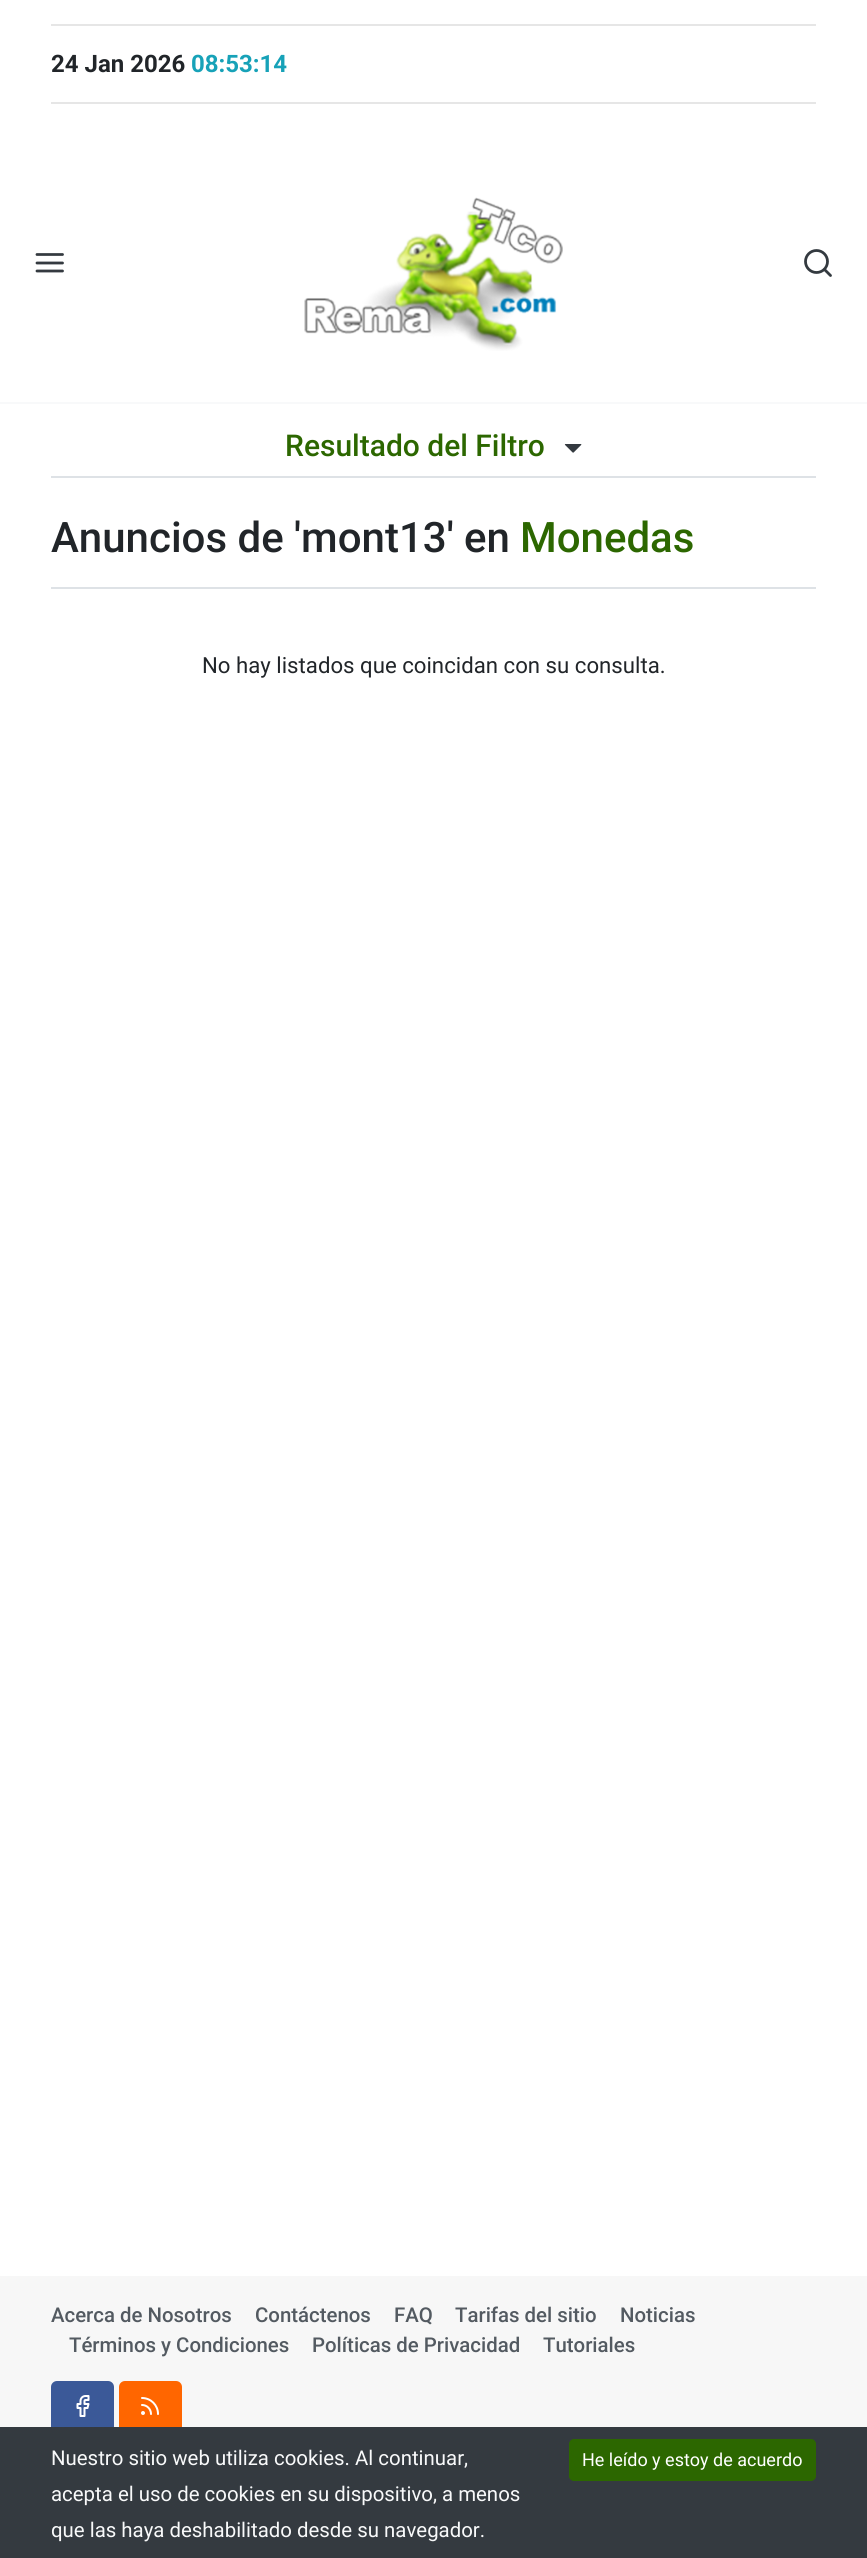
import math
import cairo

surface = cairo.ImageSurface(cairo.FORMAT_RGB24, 867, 2558)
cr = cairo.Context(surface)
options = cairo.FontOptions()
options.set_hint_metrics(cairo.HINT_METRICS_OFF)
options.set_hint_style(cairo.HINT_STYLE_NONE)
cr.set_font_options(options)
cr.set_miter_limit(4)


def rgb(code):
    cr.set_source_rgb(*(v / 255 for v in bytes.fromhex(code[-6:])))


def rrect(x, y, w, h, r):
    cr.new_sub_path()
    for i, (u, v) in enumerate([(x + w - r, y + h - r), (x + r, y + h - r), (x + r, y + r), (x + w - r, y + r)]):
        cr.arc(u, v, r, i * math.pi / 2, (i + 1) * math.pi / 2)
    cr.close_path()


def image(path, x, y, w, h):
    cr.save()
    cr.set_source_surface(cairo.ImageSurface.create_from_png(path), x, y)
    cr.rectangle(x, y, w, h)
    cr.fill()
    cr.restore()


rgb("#ffffff")
cr.paint()
for x, y, w, h, color in [
    (51, 24, 765, 2, "#e6e6e6"),
    (51, 102, 765, 2, "#e6e6e6"),
    (0, 402, 867, 2, "#f8f9fa"),
]:
    rgb(color)
    cr.rectangle(x, y, w, h)
    cr.fill()
cr.new_path()
cr.move_to(37, 263)
cr.line_to(62.5, 263)
cr.move_to(37, 254.5)
cr.line_to(62.5, 254.5)
cr.move_to(37, 271)
cr.line_to(62.5, 271)
rgb("#343a40")
cr.set_line_width(2.8)
cr.set_line_cap(cairo.LINE_CAP_ROUND)
cr.set_line_join(cairo.LINE_JOIN_ROUND)
cr.stroke()
image("img/1.png", 304, 197, 259, 154)
cr.arc(816.5, 261.5, 11, 0, 2 * math.pi)
cr.set_line_cap(cairo.LINE_CAP_BUTT)
cr.set_line_join(cairo.LINE_JOIN_MITER)
cr.stroke()
cr.new_path()
cr.move_to(830.5, 275.5)
cr.line_to(824.5, 269.5)
cr.set_line_cap(cairo.LINE_CAP_ROUND)
cr.set_line_join(cairo.LINE_JOIN_ROUND)
cr.stroke()
rgb("#dee2e6")
cr.rectangle(51, 476, 765, 2)
cr.fill()
image("img/2.png", 564, 444, 18, 9)
cr.rectangle(51, 587, 765, 2)
cr.fill()
rgb("#f7f7f7")
cr.rectangle(0, 2276, 867, 151)
cr.fill()
rgb("#3b5998")
rrect(51, 2381, 63, 52, 6)
cr.fill()
image("img/3.png", 76, 2395, 14, 22)
rgb("#ff6600")
rrect(119, 2381, 63, 52, 6)
cr.fill()
image("img/4.png", 141, 2397, 18, 18)
rgb("#343a40")
cr.rectangle(0, 2427, 867, 131)
cr.fill()
rgb("#2c6700")
rrect(570, 2440, 245, 40, 4)
cr.fill_preserve()
cr.set_line_width(2)
cr.set_line_cap(cairo.LINE_CAP_BUTT)
cr.set_line_join(cairo.LINE_JOIN_MITER)
cr.stroke()
cr.select_font_face("Roboto", cairo.FONT_SLANT_NORMAL, cairo.FONT_WEIGHT_BOLD)
cr.set_font_size(24)
rgb("#212529")
cr.move_to(51, 72)
cr.show_text("24 Jan 2026")
rgb("#17a2b8")
cr.move_to(191, 72)
cr.show_text("08:53:14")
cr.select_font_face("Roboto Medium")
cr.set_font_size(30)
rgb("#2c6700")
cr.move_to(285, 456)
cr.show_text("Resultado del Filtro")
cr.set_font_size(42)
rgb("#212529")
cr.move_to(51, 552)
cr.show_text("Anuncios de 'mont13' en")
rgb("#2c6700")
cr.move_to(520, 552)
cr.show_text("Monedas")
cr.select_font_face("Roboto")
cr.set_font_size(22.2)
rgb("#212529")
cr.move_to(202, 673)
cr.show_text("No hay listados que coincidan con su consulta.")
cr.select_font_face("Roboto Medium")
cr.set_font_size(20.4)
rgb("#535a61")
for x, y, s in [
    (51, 2322, "Acerca de Nosotros"),
    (255, 2322, "Contáctenos"),
    (394, 2322, "FAQ"),
    (455, 2322, "Tarifas del sitio"),
    (620, 2322, "Noticias"),
    (69, 2352, "Términos y Condiciones"),
    (312, 2352, "Políticas de Privacidad"),
    (543, 2352, "Tutoriales"),
]:
    cr.move_to(x, y)
    cr.show_text(s)
cr.select_font_face("Roboto")
rgb("#f8f9fa")
for x, y, s in [
    (51, 2465, "Nuestro sitio web utiliza cookies. Al continuar,"),
    (51, 2501, "acepta el uso de cookies en su dispositivo, a menos"),
    (51, 2537, "que las haya deshabilitado desde su navegador."),
]:
    cr.move_to(x, y)
    cr.show_text(s)
cr.set_font_size(18)
rgb("#ffffff")
cr.move_to(582, 2466)
cr.show_text("He leído y estoy de acuerdo")
surface.write_to_png("page.png")
